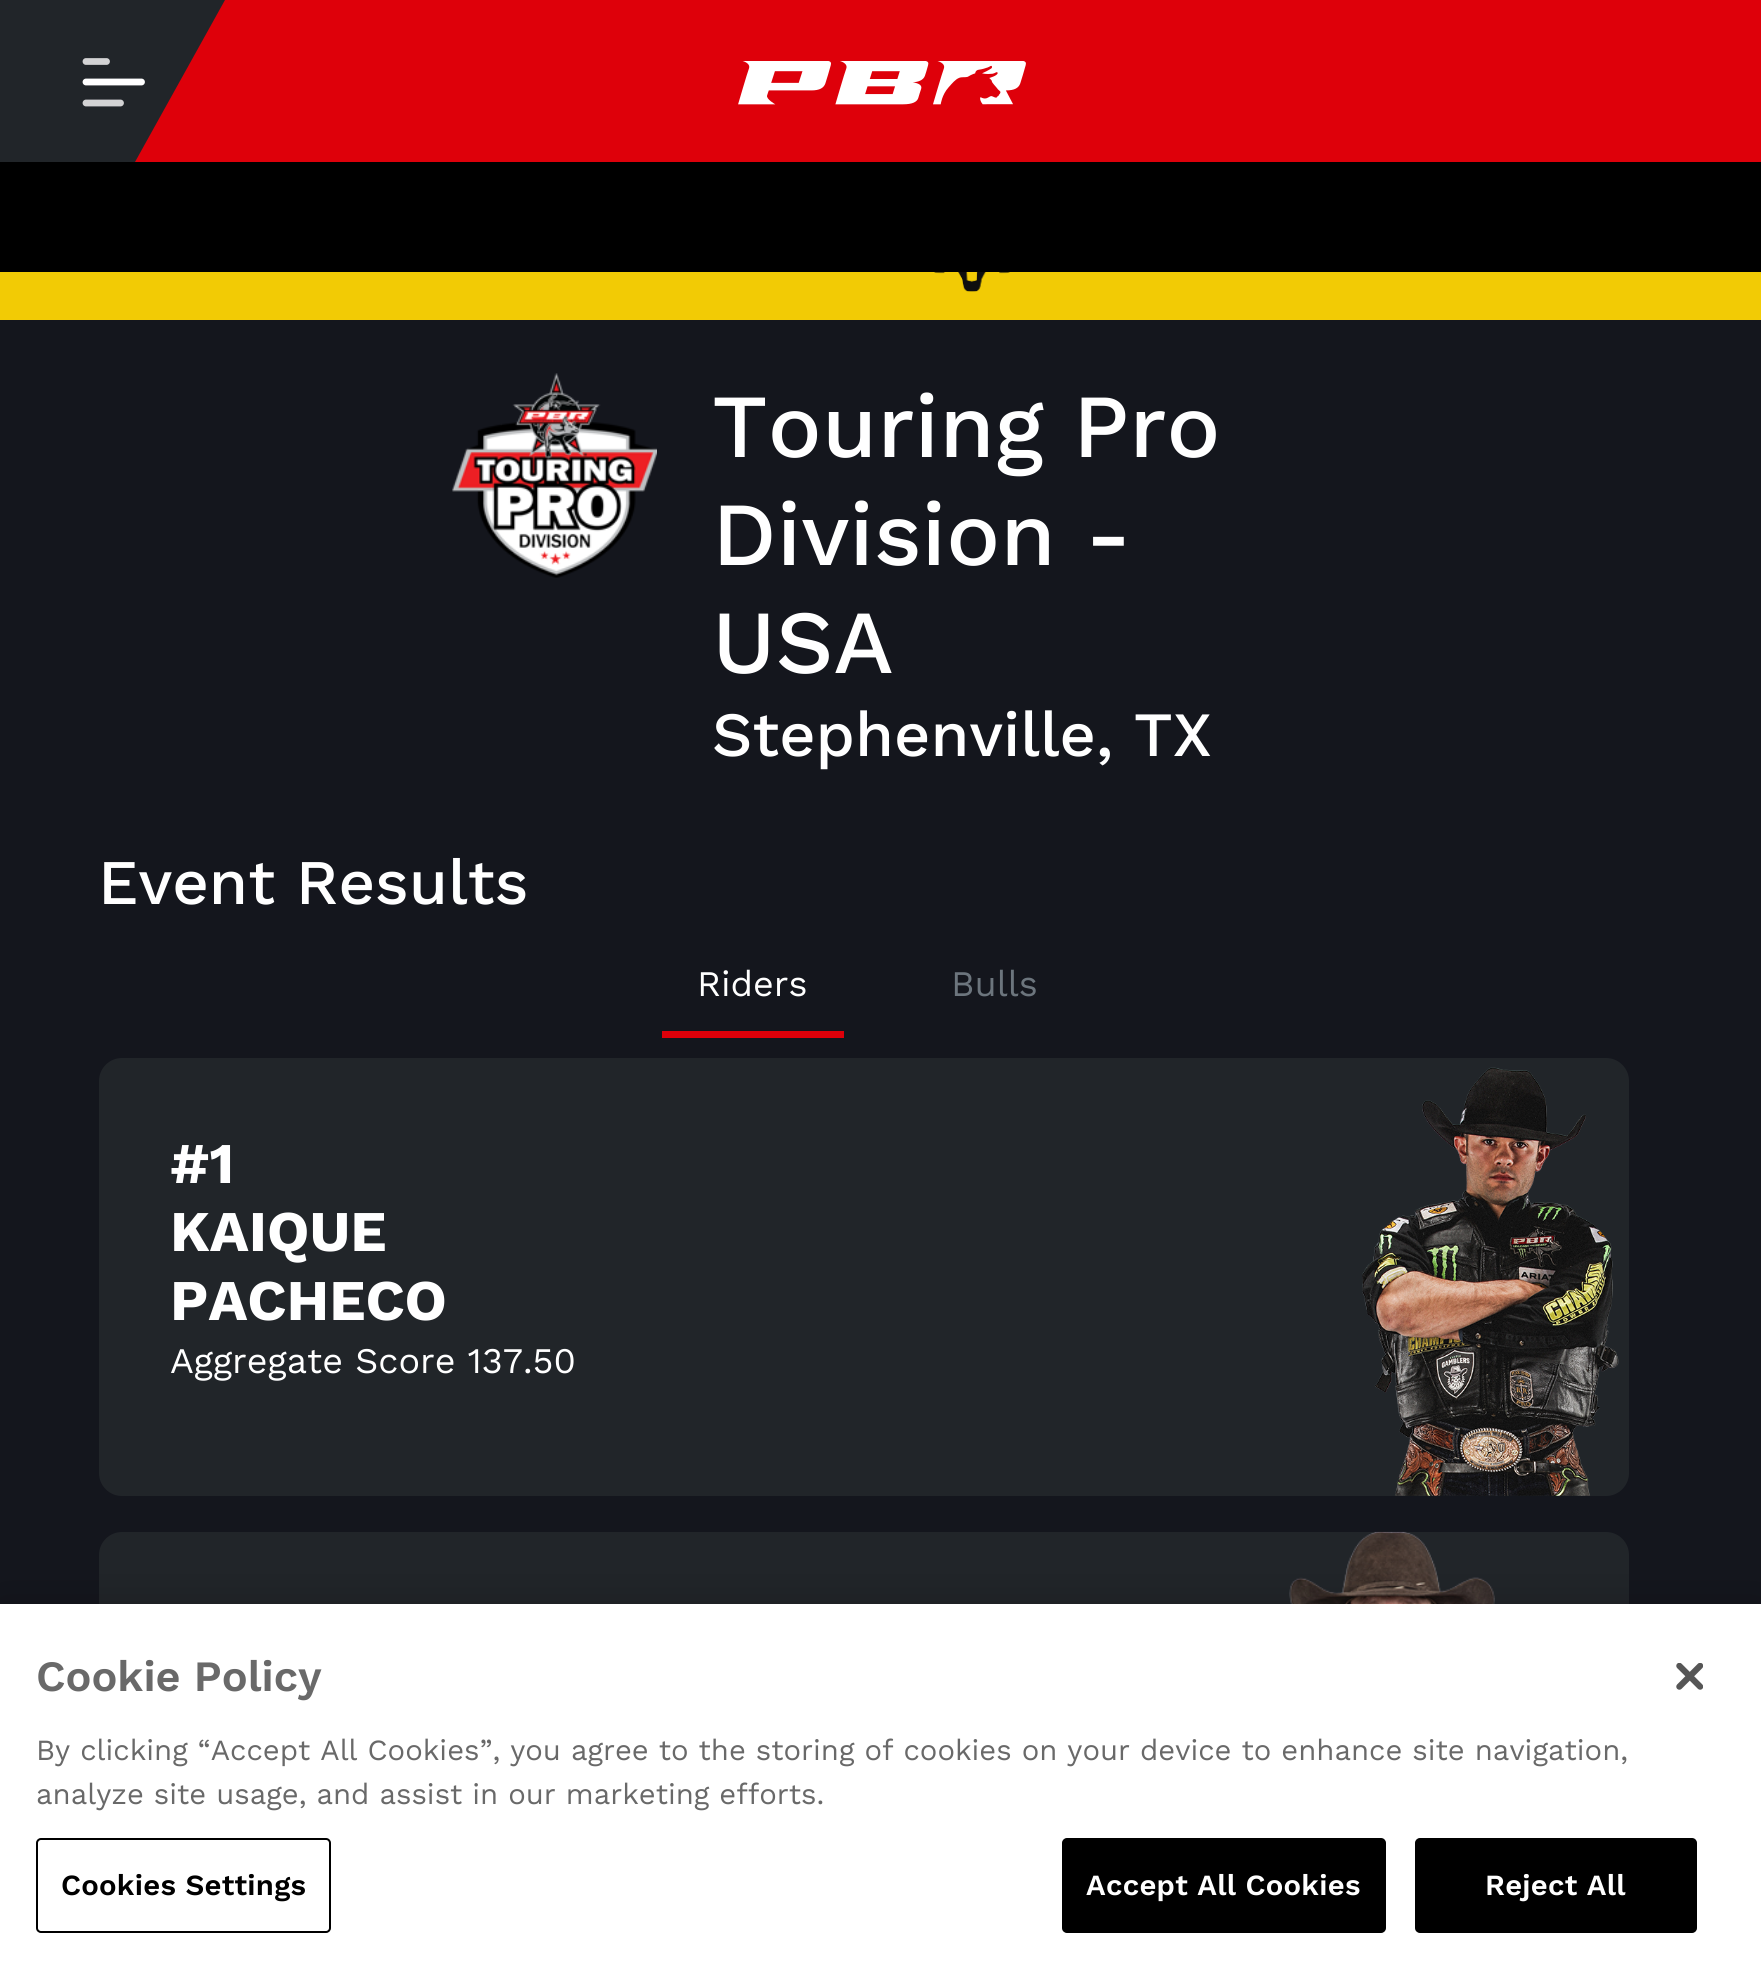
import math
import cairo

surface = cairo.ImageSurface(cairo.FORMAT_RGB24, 1761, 1977)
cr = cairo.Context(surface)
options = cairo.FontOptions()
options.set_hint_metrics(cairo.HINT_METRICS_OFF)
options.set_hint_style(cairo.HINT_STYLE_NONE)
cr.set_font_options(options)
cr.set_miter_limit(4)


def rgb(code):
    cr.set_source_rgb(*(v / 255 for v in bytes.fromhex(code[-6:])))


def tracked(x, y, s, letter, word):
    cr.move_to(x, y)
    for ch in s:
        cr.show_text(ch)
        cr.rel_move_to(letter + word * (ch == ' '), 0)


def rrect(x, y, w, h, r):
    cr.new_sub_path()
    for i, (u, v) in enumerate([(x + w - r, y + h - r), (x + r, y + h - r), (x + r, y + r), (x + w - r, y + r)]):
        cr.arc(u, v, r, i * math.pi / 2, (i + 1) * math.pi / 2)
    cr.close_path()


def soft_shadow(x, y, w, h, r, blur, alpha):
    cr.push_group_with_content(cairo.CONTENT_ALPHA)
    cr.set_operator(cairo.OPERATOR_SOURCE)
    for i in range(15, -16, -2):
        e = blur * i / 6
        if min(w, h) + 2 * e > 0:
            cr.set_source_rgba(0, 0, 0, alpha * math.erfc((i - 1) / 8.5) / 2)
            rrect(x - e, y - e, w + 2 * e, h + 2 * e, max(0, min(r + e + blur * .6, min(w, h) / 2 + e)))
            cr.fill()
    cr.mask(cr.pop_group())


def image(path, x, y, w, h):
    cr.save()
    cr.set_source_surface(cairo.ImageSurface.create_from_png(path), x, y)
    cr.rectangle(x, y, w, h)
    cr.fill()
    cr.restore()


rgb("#f2cb05")
cr.paint()
rgb("#de000a")
cr.rectangle(135, 0, 1626, 162)
cr.fill()
rgb("#212529")
cr.new_path()
cr.move_to(0, 0)
cr.line_to(0, 162)
cr.line_to(135, 162)
cr.line_to(225, 0)
cr.close_path()
cr.fill()
cr.new_path()
cr.move_to(86, 61.5)
cr.line_to(106.5, 61.5)
rgb("#d3d3d4")
cr.set_line_width(6.8)
cr.set_line_cap(cairo.LINE_CAP_ROUND)
cr.set_line_join(cairo.LINE_JOIN_ROUND)
cr.stroke()
cr.new_path()
cr.move_to(86, 82)
cr.line_to(141.5, 82)
rgb("#ffffff")
cr.stroke()
cr.new_path()
cr.move_to(86, 103)
cr.line_to(120.5, 103)
rgb("#d3d3d4")
cr.stroke()
image("img/1.png", 738, 61, 288, 44)
rgb("#000000")
cr.rectangle(0, 162, 1761, 110)
cr.fill()
image("img/2.png", 934, 272, 76, 20)
rgb("#14161d")
cr.rectangle(0, 320, 1761, 1284)
cr.fill()
image("img/3.png", 452, 373, 205, 205)
rgb("#de000a")
cr.rectangle(662, 1031, 182, 7)
cr.fill()
rgb("#212529")
rrect(99, 1058, 1530, 438, 23)
cr.fill()
image("img/4.png", 1362, 1067, 257, 429)
rrect(99, 1532, 1530, 441, 23)
cr.fill()
image("img/5.png", 1289, 1531, 206, 73)
rgb("#000000")
soft_shadow(0, 1604, 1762, 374, 0, 20, 0.2)
rgb("#ffffff")
cr.rectangle(0, 1604, 1761, 373)
cr.fill()
rrect(37, 1839, 293, 93, 4)
rgb("#000000")
cr.set_line_width(2)
cr.set_line_cap(cairo.LINE_CAP_BUTT)
cr.set_line_join(cairo.LINE_JOIN_MITER)
cr.stroke()
rrect(1063, 1839, 322, 93, 4)
cr.fill_preserve()
cr.stroke()
rrect(1416, 1839, 280, 93, 4)
cr.fill_preserve()
cr.stroke()
image("img/6.png", 1676, 1663, 27, 27)
cr.select_font_face("Work Sans Medium")
cr.set_font_size(90)
rgb("#ffffff")
for x, y, s in [
    (712, 457, "Touring Pro"),
    (712, 565, "Division -"),
    (712, 673, "USA"),
]:
    cr.move_to(x, y)
    cr.show_text(s)
cr.set_font_size(63)
cr.move_to(712, 756)
cr.show_text("Stephenville, TX")
cr.set_font_size(63.5)
cr.move_to(98, 904)
cr.show_text("Event Results")
cr.select_font_face("Work Sans")
cr.set_font_size(36)
cr.move_to(697, 996)
cr.show_text("Riders")
rgb("#6c757d")
cr.move_to(951, 996)
cr.show_text("Bulls")
cr.select_font_face("Work Sans", cairo.FONT_SLANT_NORMAL, cairo.FONT_WEIGHT_BOLD)
cr.set_font_size(57.5)
rgb("#ffffff")
for x, y, s in [
    (170, 1183, "#1"),
    (170, 1251, "KAIQUE"),
    (170, 1320, "PACHECO"),
]:
    cr.move_to(x, y)
    cr.show_text(s)
cr.select_font_face("Work Sans")
cr.set_font_size(36)
cr.move_to(170, 1373)
cr.show_text("Aggregate Score 137.50")
cr.select_font_face("Work Sans SemiBold")
cr.set_font_size(43.25)
rgb("#696969")
cr.move_to(36, 1691)
cr.show_text("Cookie Policy")
cr.select_font_face("Work Sans")
cr.set_font_size(29.27)
cr.move_to(36, 1760)
cr.show_text("By clicking “Accept All Cookies”, you agree to the storing of cookies on your device to enhance site navigation,")
cr.move_to(36, 1804)
cr.show_text("analyze site usage, and assist in our marketing efforts.")
cr.select_font_face("Work Sans SemiBold")
rgb("#000000")
tracked(61, 1895, "Cookies Settings", 0.25, 0)
rgb("#ffffff")
tracked(1086, 1895, "Accept All Cookies", 0.25, 0)
tracked(1485, 1895, "Reject All", 0.25, 0)
surface.write_to_png("page.png")
